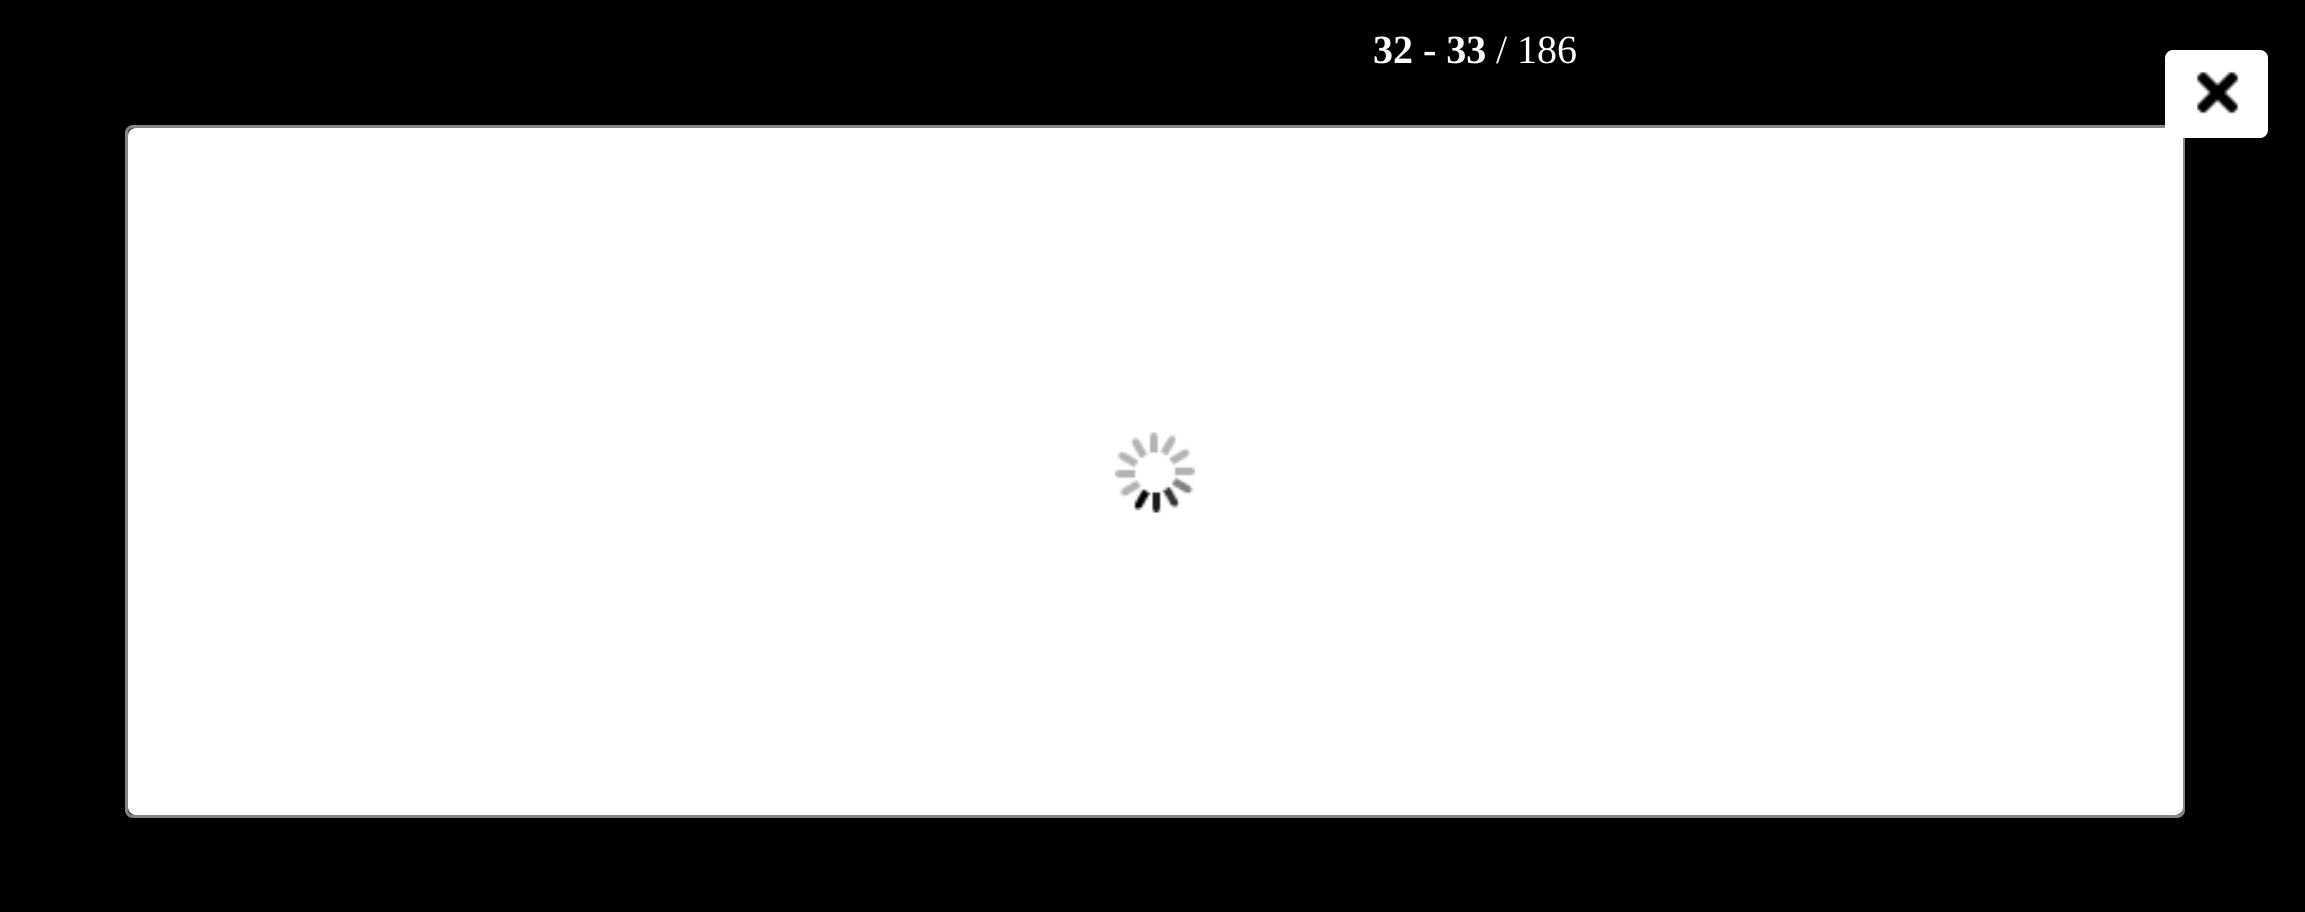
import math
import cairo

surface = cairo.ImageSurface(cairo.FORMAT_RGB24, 2305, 912)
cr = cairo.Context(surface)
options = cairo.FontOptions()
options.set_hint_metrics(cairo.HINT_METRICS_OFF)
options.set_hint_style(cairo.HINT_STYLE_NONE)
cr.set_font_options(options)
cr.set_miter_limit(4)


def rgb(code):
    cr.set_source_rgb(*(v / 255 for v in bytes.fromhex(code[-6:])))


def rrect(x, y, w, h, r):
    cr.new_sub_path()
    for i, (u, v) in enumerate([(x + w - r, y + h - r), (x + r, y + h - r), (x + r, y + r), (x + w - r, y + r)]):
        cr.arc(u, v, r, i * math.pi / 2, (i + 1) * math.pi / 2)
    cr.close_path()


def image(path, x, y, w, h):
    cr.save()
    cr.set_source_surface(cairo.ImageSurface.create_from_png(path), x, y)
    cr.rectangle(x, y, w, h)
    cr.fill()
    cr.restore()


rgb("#000000")
cr.paint()
rgb("#333333")
rrect(125, 125, 2060, 693, 8)
cr.fill()
rrect(126.5, 126.5, 2057, 690, 6.5)
cr.set_source_rgba(1, 1, 1, 0.4)
cr.set_line_width(3)
cr.stroke()
rgb("#ffffff")
rrect(128, 128, 2055, 687, 8)
cr.fill()
rrect(2165, 50, 103, 88, 8)
cr.fill()
image("img/1.png", 2196, 71, 43, 43)
image("img/2.png", 1115, 432, 80, 81)
cr.select_font_face("Liberation Serif", cairo.FONT_SLANT_NORMAL, cairo.FONT_WEIGHT_BOLD)
cr.set_font_size(40)
cr.move_to(1373, 63)
cr.show_text("32 - 33")
cr.select_font_face("Liberation Serif")
cr.move_to(1496, 63)
cr.show_text("/ 186")
surface.write_to_png("page.png")
